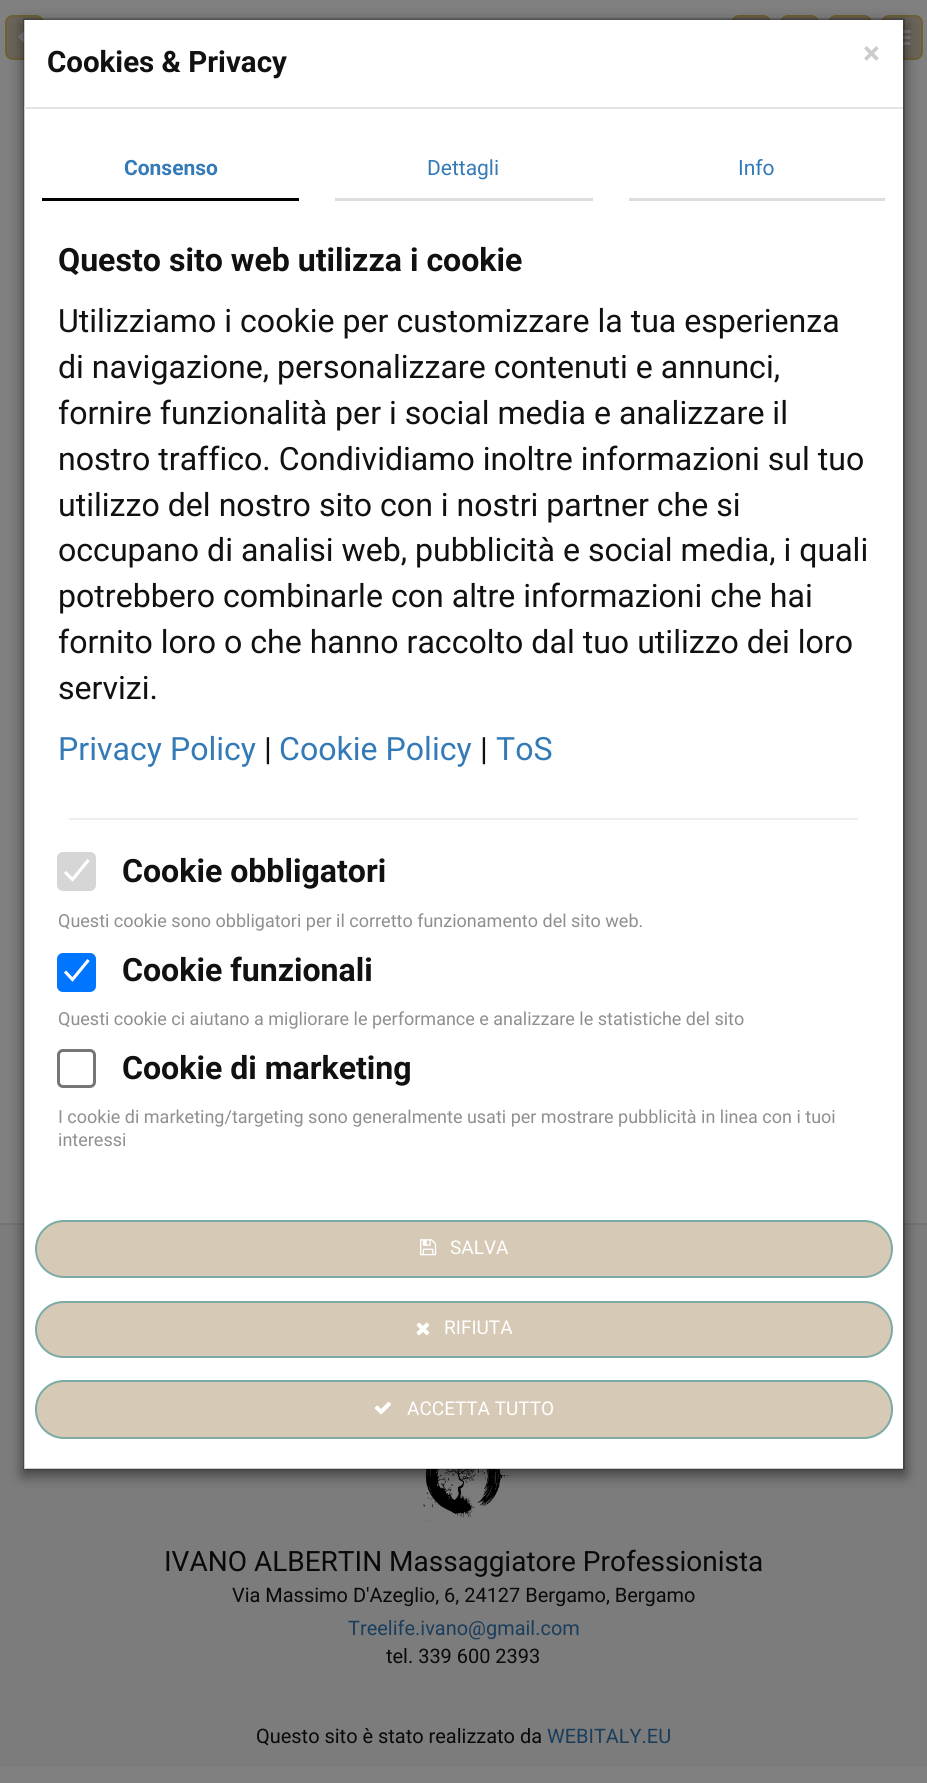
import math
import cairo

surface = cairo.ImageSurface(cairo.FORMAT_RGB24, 927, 1783)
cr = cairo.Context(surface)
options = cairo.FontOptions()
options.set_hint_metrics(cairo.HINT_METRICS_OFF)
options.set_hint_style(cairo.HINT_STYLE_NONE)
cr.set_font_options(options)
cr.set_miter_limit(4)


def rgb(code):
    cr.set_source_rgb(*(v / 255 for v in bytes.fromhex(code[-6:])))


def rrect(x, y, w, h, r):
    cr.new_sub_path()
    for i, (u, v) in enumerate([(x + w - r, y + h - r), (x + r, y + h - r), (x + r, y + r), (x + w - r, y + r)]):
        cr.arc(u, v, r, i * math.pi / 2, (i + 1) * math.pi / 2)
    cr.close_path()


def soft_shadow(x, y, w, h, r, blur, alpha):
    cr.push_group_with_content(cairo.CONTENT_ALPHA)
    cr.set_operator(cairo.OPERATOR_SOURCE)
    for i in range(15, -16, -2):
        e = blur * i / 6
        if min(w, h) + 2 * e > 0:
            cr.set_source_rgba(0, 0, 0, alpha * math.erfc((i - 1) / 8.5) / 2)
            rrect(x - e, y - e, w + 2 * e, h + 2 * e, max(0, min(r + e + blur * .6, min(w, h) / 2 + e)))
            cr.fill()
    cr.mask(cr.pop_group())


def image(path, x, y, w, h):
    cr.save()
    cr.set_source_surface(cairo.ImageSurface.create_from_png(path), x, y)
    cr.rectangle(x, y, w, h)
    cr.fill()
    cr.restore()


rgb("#808080")
cr.paint()
rgb("#6b655b")
rrect(6, 16, 37, 43, 7)
cr.fill_preserve()
rgb("#6d6035")
cr.stroke()
image("img/1.png", 18, 30, 6, 13)
rgb("#6b655b")
rrect(732, 16, 38, 43, 7)
cr.fill_preserve()
rgb("#6d6035")
cr.stroke()
rgb("#6b655b")
rrect(781, 16, 37, 43, 7)
cr.fill_preserve()
rgb("#6d6035")
cr.stroke()
rgb("#6b655b")
rrect(829, 16, 42, 43, 7)
cr.fill_preserve()
rgb("#6d6035")
cr.stroke()
rgb("#6b655b")
rrect(882, 16, 40, 43, 7)
cr.fill_preserve()
rgb("#6d6035")
cr.stroke()
image("img/2.png", 903, 30, 8, 15)
rgb("#7c7c7c")
cr.rectangle(0, 1225, 927, 542)
cr.fill()
rgb("#747474")
cr.rectangle(0, 1223, 927, 2)
cr.fill()
image("img/6.png", 423, 1469, 85, 53)
rgb("#000000")
soft_shadow(23, 23, 882, 1452, 0, 7, 0.5)
rgb("#ffffff")
cr.rectangle(24, 20, 879, 1449)
cr.fill()
cr.rectangle(24, 19, 880, 1450)
cr.set_source_rgba(0, 0, 0, 0.2)
cr.stroke()
for x, y, w, h, color in [
    (24, 107, 879, 2, "#e5e5e5"),
    (42, 198, 257, 3, "#000000"),
    (335, 198, 258, 3, "#dddddd"),
    (629, 198, 256, 3, "#dddddd"),
    (69, 818, 789, 2, "#eeeeee"),
]:
    rgb(color)
    cr.rectangle(x, y, w, h)
    cr.fill()
rgb("#d6d6d6")
rrect(57, 852, 39, 39, 6)
cr.fill()
cr.new_path()
cr.move_to(65, 872)
cr.line_to(72.5, 879.5)
cr.line_to(88.5, 860)
rgb("#ffffff")
cr.set_line_width(3.1)
cr.stroke()
rgb("#0075ff")
rrect(57, 953, 39, 39, 6)
cr.fill()
cr.new_path()
cr.move_to(65, 971.5)
cr.line_to(72.5, 979.5)
cr.line_to(88.5, 960)
rgb("#ffffff")
cr.stroke()
rrect(58.5, 1050.5, 36, 36, 4.5)
rgb("#767676")
cr.set_line_width(3)
cr.stroke()
rgb("#d6c9b6")
rrect(36, 1221, 856, 56, 28)
cr.fill_preserve()
rgb("#7daaa5")
cr.set_line_width(2)
cr.stroke()
image("img/3.png", 420, 1239, 17, 17)
rgb("#d6c9b6")
rrect(36, 1302, 856, 55, 27.5)
cr.fill_preserve()
rgb("#7daaa5")
cr.stroke()
image("img/4.png", 416, 1322, 14, 14)
rgb("#d6c9b6")
rrect(36, 1381, 856, 57, 28)
cr.fill_preserve()
rgb("#7daaa5")
cr.stroke()
image("img/5.png", 374, 1401, 18, 14)
cr.select_font_face("Roboto", cairo.FONT_SLANT_NORMAL, cairo.FONT_WEIGHT_BOLD)
cr.set_font_size(29.5)
rgb("#111111")
cr.move_to(47, 72)
cr.show_text("Cookies & Privacy")
cr.set_font_size(32)
rgb("#cccccc")
cr.move_to(863, 64)
cr.show_text("×")
cr.set_font_size(21)
rgb("#337ab7")
cr.move_to(124, 175)
cr.show_text("Consenso")
cr.select_font_face("Roboto")
cr.move_to(427, 175)
cr.show_text("Dettagli")
cr.move_to(738, 175)
cr.show_text("Info")
cr.select_font_face("Roboto", cairo.FONT_SLANT_NORMAL, cairo.FONT_WEIGHT_BOLD)
cr.set_font_size(32.1)
rgb("#111111")
cr.move_to(58, 271)
cr.show_text("Questo sito web utilizza i cookie")
cr.select_font_face("Roboto")
for x, y, s in [
    (58, 332, "Utilizziamo i cookie per customizzare la tua esperienza"),
    (58, 378, "di navigazione, personalizzare contenuti e annunci,"),
    (58, 424, "fornire funzionalità per i social media e analizzare il"),
    (58, 470, "nostro traffico. Condividiamo inoltre informazioni sul tuo"),
    (58, 516, "utilizzo del nostro sito con i nostri partner che si"),
    (58, 561, "occupano di analisi web, pubblicità e social media, i quali"),
    (58, 607, "potrebbero combinarle con altre informazioni che hai"),
    (58, 653, "fornito loro o che hanno raccolto dal tuo utilizzo dei loro"),
    (58, 699, "servizi."),
]:
    cr.move_to(x, y)
    cr.show_text(s)
rgb("#337ab7")
cr.move_to(58, 760)
cr.show_text("Privacy Policy")
rgb("#111111")
cr.move_to(264, 760)
cr.show_text("|")
rgb("#337ab7")
cr.move_to(279, 760)
cr.show_text("Cookie Policy")
rgb("#111111")
cr.move_to(480, 760)
cr.show_text("|")
rgb("#337ab7")
cr.move_to(496, 760)
cr.show_text("ToS")
cr.select_font_face("Roboto", cairo.FONT_SLANT_NORMAL, cairo.FONT_WEIGHT_BOLD)
rgb("#111111")
cr.move_to(122, 882)
cr.show_text("Cookie obbligatori")
cr.select_font_face("Roboto")
cr.set_font_size(18)
rgb("#8f8f8f")
cr.move_to(58, 927)
cr.show_text("Questi cookie sono obbligatori per il corretto funzionamento del sito web.")
cr.select_font_face("Roboto", cairo.FONT_SLANT_NORMAL, cairo.FONT_WEIGHT_BOLD)
cr.set_font_size(32.1)
rgb("#111111")
cr.move_to(122, 981)
cr.show_text("Cookie funzionali")
cr.select_font_face("Roboto")
cr.set_font_size(18)
rgb("#8f8f8f")
cr.move_to(58, 1025)
cr.show_text("Questi cookie ci aiutano a migliorare le performance e analizzare le statistiche del sito")
cr.select_font_face("Roboto", cairo.FONT_SLANT_NORMAL, cairo.FONT_WEIGHT_BOLD)
cr.set_font_size(32.1)
rgb("#111111")
cr.move_to(122, 1079)
cr.show_text("Cookie di marketing")
cr.select_font_face("Roboto")
cr.set_font_size(18)
rgb("#8f8f8f")
cr.move_to(58, 1123)
cr.show_text("I cookie di marketing/targeting sono generalmente usati per mostrare pubblicità in linea con i tuoi")
cr.move_to(58, 1146)
cr.show_text("interessi")
cr.set_font_size(19)
rgb("#ffffff")
for x, y, s in [
    (450, 1254, "SALVA"),
    (444, 1334, "RIFIUTA"),
    (407, 1415, "ACCETTA TUTTO"),
]:
    cr.move_to(x, y)
    cr.show_text(s)
cr.set_font_size(28)
rgb("#090909")
cr.move_to(164, 1571)
cr.show_text("IVANO ALBERTIN Massaggiatore Professionista")
cr.set_font_size(19.95)
cr.move_to(232, 1602)
cr.show_text("Via Massimo D'Azeglio, 6, 24127 Bergamo, Bergamo")
rgb("#1a3d5c")
cr.move_to(348, 1635)
cr.show_text("Treelife.ivano@gmail.com")
rgb("#090909")
cr.move_to(386, 1663)
cr.show_text("tel. 339 600 2393")
cr.move_to(256, 1743)
cr.show_text("Questo sito è stato realizzato da")
rgb("#1a3d5c")
cr.move_to(547, 1743)
cr.show_text("WEBITALY.EU")
surface.write_to_png("page.png")
